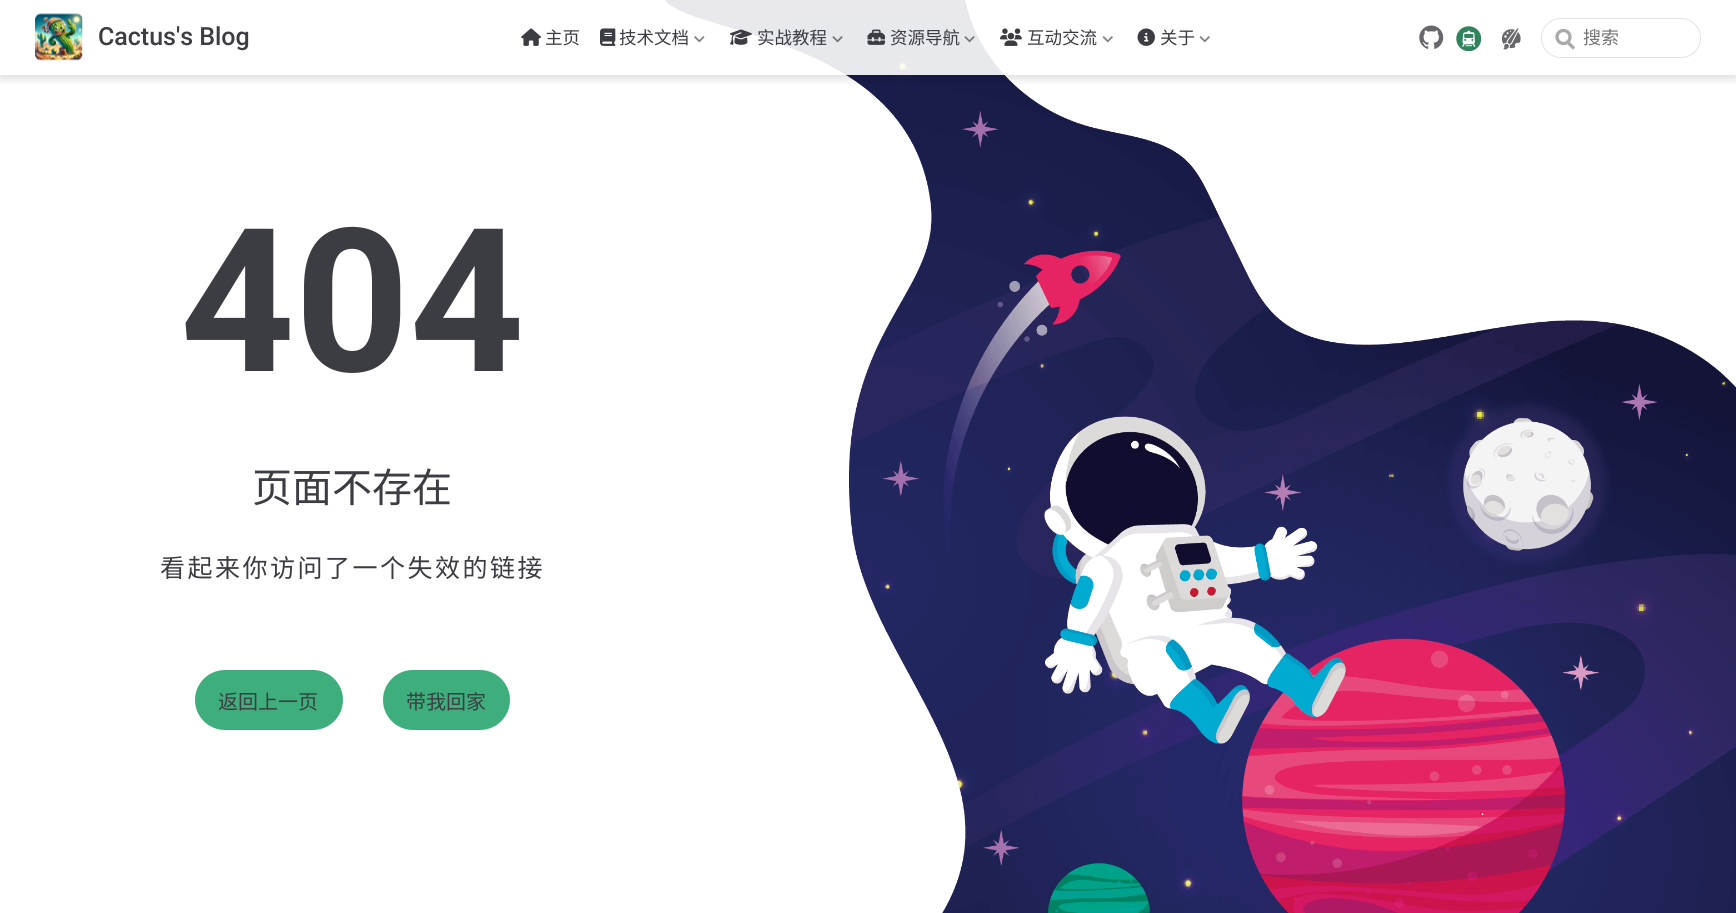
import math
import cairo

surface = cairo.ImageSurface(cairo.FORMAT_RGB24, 1736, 913)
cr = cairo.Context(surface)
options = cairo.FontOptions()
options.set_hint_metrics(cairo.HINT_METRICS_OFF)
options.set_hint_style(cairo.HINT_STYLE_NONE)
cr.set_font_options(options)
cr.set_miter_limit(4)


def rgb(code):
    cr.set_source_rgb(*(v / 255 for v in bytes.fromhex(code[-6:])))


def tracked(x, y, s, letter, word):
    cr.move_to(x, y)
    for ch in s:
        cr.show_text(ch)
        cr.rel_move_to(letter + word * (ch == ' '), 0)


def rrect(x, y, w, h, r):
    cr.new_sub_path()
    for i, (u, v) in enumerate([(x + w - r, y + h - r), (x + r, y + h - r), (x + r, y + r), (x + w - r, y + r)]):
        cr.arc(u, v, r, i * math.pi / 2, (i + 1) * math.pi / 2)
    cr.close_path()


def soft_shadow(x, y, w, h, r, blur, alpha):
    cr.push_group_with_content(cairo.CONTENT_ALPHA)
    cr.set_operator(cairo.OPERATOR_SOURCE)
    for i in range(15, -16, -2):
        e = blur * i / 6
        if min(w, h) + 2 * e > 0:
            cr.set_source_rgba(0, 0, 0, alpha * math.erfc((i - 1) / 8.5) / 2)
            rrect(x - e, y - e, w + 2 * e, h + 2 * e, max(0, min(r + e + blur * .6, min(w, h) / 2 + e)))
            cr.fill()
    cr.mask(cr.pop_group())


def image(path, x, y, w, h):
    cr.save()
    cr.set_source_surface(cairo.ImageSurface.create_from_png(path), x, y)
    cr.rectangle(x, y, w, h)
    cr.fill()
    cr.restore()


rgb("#ffffff")
cr.paint()
image("img/16.png", 0, 0, 1736, 913)
cr.save()
cr.rectangle(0, 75, 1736, 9)
cr.clip()
rgb("#000000")
soft_shadow(0, 3, 1736, 75, 0, 5, 0.15)
cr.restore()
cr.set_source_rgba(1, 1, 1, 0.9)
cr.rectangle(664, 0, 341, 75)
cr.fill()
image("img/1.png", 35, 13, 48, 48)
image("img/2.png", 521, 28, 20, 18)
image("img/3.png", 600, 28, 16, 18)
image("img/4.png", 694, 36, 11, 7)
image("img/5.png", 730, 29, 22, 16)
image("img/6.png", 832, 36, 11, 7)
image("img/7.png", 867, 29, 18, 16)
image("img/8.png", 964, 36, 11, 7)
image("img/9.png", 1000, 28, 22, 18)
image("img/10.png", 1102, 36, 11, 7)
image("img/11.png", 1137, 28, 18, 18)
image("img/12.png", 1199, 36, 11, 7)
image("img/13.png", 1419, 25, 25, 24)
image("img/14.png", 1456, 26, 25, 25)
image("img/15.png", 1501, 28, 20, 22)
cr.new_path()
cr.move_to(1574, 48.5)
cr.line_to(1567, 41.5)
rgb("#aaaaaa")
cr.set_line_width(3.3)
cr.stroke()
cr.arc(1563.5, 37, 6.5, 0, 2 * math.pi)
cr.stroke()
rrect(1541.5, 18.5, 159, 39, 19.5)
rgb("#e2e2e3")
cr.set_line_width(1)
cr.stroke()
rgb("#3eaf7c")
rrect(195, 670, 148, 60, 30)
cr.fill()
rrect(383, 670, 127, 60, 30)
cr.fill()
cr.select_font_face("Roboto Medium")
cr.set_font_size(25)
rgb("#3c3c43")
cr.move_to(98, 45)
cr.show_text("Cactus's Blog")
cr.select_font_face("Noto Sans CJK SC")
cr.set_font_size(17.5)
for x, y, s in [
    (545, 44, "主页"),
    (619, 44, "技术文档"),
    (757, 44, "实战教程"),
    (890, 44, "资源导航"),
    (1027, 44, "互动交流"),
    (1160, 44, "关于"),
]:
    cr.move_to(x, y)
    cr.show_text(s)
cr.set_font_size(18)
rgb("#757575")
cr.move_to(1583, 44)
cr.show_text("搜索")
cr.select_font_face("Roboto", cairo.FONT_SLANT_NORMAL, cairo.FONT_WEIGHT_BOLD)
cr.set_font_size(200)
rgb("#3c3c43")
cr.move_to(180, 371)
cr.show_text("404")
cr.select_font_face("Noto Sans CJK SC")
cr.set_font_size(40)
cr.move_to(252, 502)
cr.show_text("页面不存在")
cr.set_font_size(25)
tracked(160, 577, "看起来你访问了一个失效的链接", 2.5, 0)
cr.set_font_size(20)
cr.move_to(218, 709)
cr.show_text("返回上一页")
cr.move_to(406, 709)
cr.show_text("带我回家")
surface.write_to_png("page.png")
